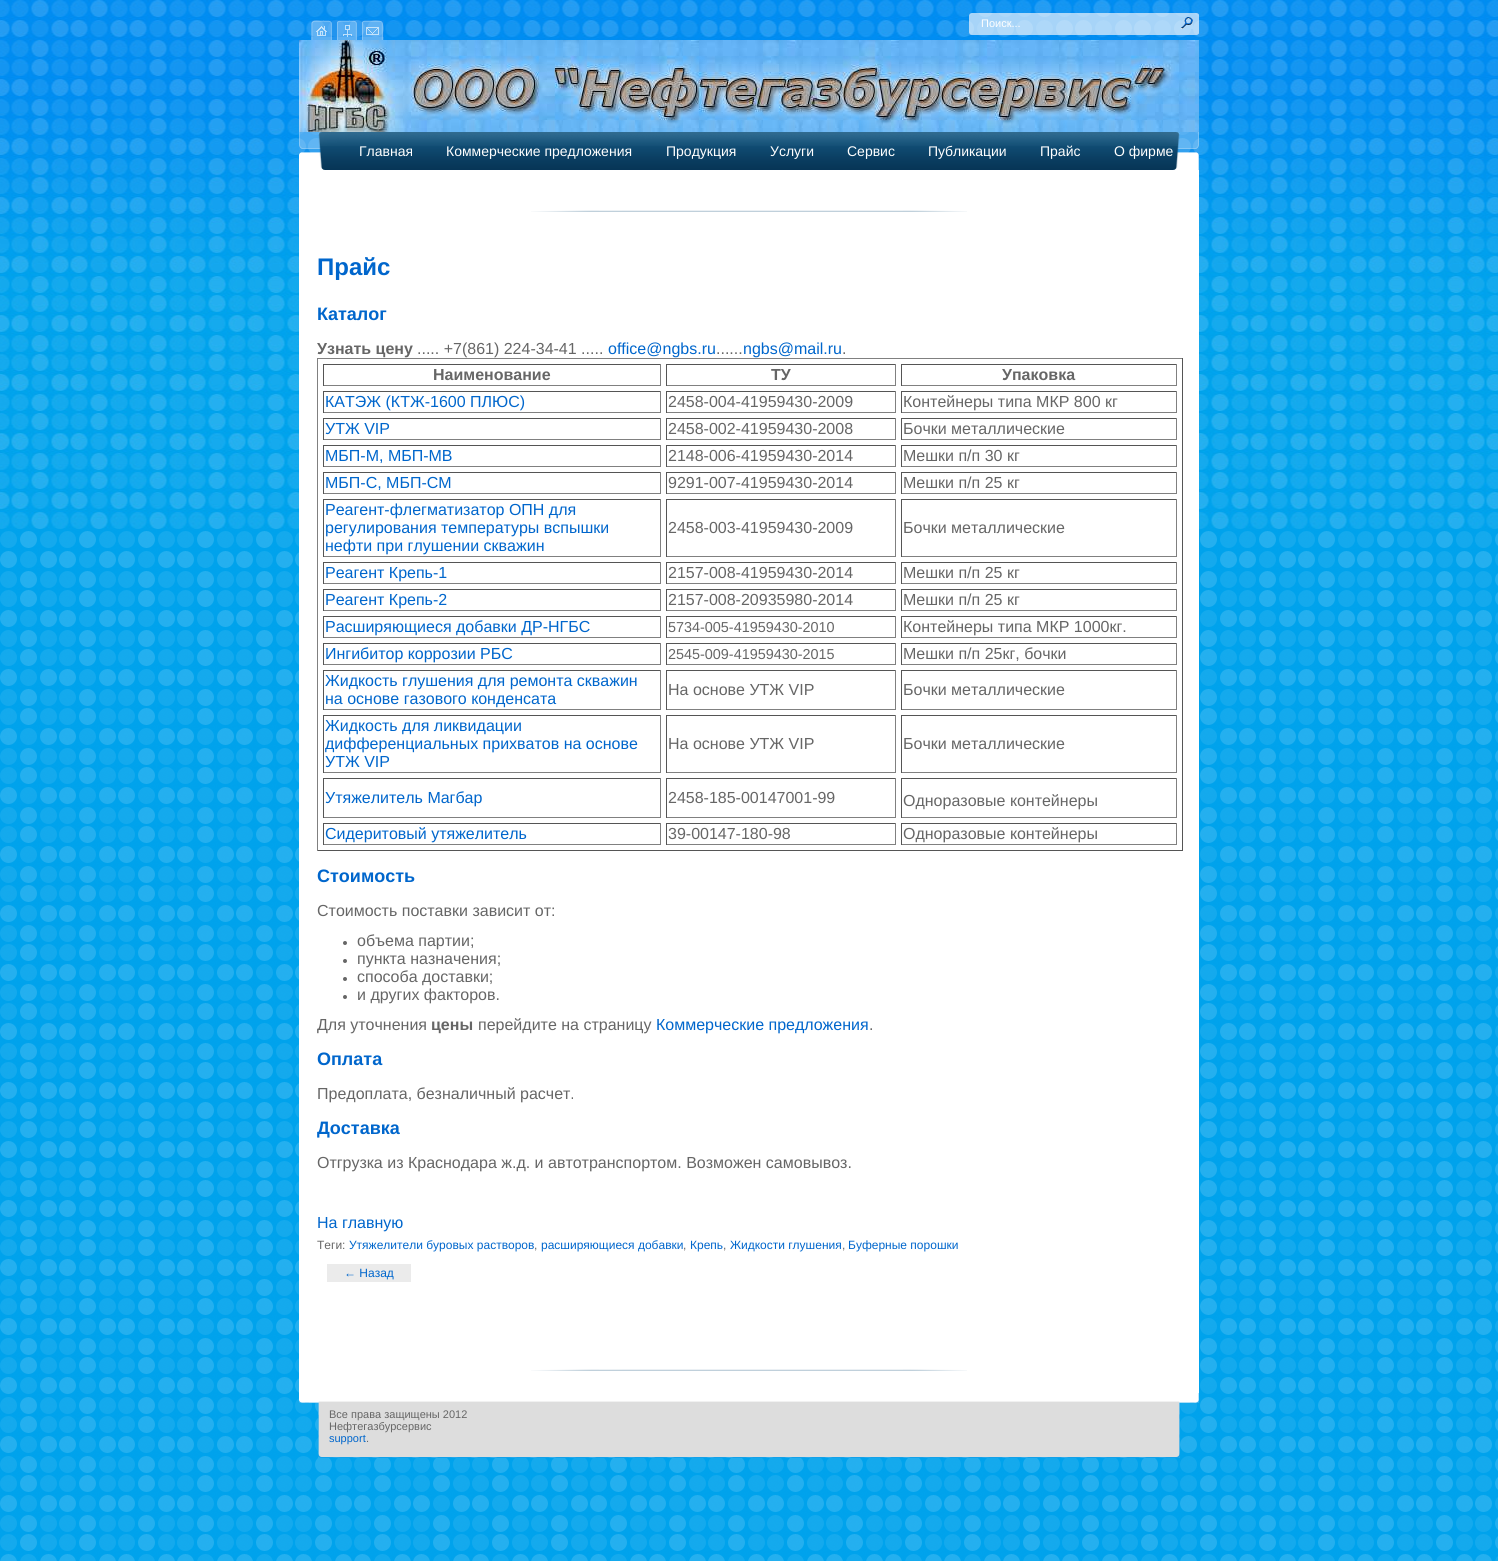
import math
import cairo

surface = cairo.ImageSurface(cairo.FORMAT_RGB24, 1498, 1561)
cr = cairo.Context(surface)
options = cairo.FontOptions()
options.set_hint_metrics(cairo.HINT_METRICS_OFF)
options.set_hint_style(cairo.HINT_STYLE_NONE)
cr.set_font_options(options)
cr.set_miter_limit(4)


def rgb(code):
    cr.set_source_rgb(*(v / 255 for v in bytes.fromhex(code[-6:])))


def image(path, x, y, w, h):
    cr.save()
    cr.set_source_surface(cairo.ImageSurface.create_from_png(path), x, y)
    cr.rectangle(x, y, w, h)
    cr.fill()
    cr.restore()


rgb("#ffffff")
cr.paint()
image("img/1.png", 0, 529, 1498, 1032)
image("img/2.png", 0, 0, 1498, 529)
image("img/3.png", 311, 20, 73, 20)
image("img/4.png", 969, 13, 230, 22)
image("img/5.png", 1181, 17, 12, 12)
image("img/6.png", 299, 40, 900, 92)
image("img/7.png", 299, 132, 900, 38)
rgb("#ffffff")
cr.rectangle(299, 170, 900, 1223)
cr.fill()
image("img/8.png", 531, 210, 436, 2)
for x, y, w, h, color in [
    (317, 358, 866, 1, "#808080"),
    (1182, 358, 1, 493, "#555555"),
    (317, 850, 866, 1, "#555555"),
    (317, 358, 1, 493, "#808080"),
    (323, 364, 338, 1, "#555555"),
    (660, 364, 1, 22, "#808080"),
    (323, 385, 338, 1, "#808080"),
    (323, 364, 1, 22, "#555555"),
    (666, 364, 230, 1, "#555555"),
    (895, 364, 1, 22, "#808080"),
    (666, 385, 230, 1, "#808080"),
    (666, 364, 1, 22, "#555555"),
    (901, 364, 276, 1, "#555555"),
    (1176, 364, 1, 22, "#808080"),
    (901, 385, 276, 1, "#808080"),
    (901, 364, 1, 22, "#555555"),
    (323, 391, 338, 1, "#555555"),
    (660, 391, 1, 22, "#808080"),
    (323, 412, 338, 1, "#808080"),
    (323, 391, 1, 22, "#555555"),
    (666, 391, 230, 1, "#555555"),
    (895, 391, 1, 22, "#808080"),
    (666, 412, 230, 1, "#808080"),
    (666, 391, 1, 22, "#555555"),
    (901, 391, 276, 1, "#555555"),
    (1176, 391, 1, 22, "#808080"),
    (901, 412, 276, 1, "#808080"),
    (901, 391, 1, 22, "#555555"),
    (323, 418, 338, 1, "#555555"),
    (660, 418, 1, 22, "#808080"),
    (323, 439, 338, 1, "#808080"),
    (323, 418, 1, 22, "#555555"),
    (666, 418, 230, 1, "#555555"),
    (895, 418, 1, 22, "#808080"),
    (666, 439, 230, 1, "#808080"),
    (666, 418, 1, 22, "#555555"),
    (901, 418, 276, 1, "#555555"),
    (1176, 418, 1, 22, "#808080"),
    (901, 439, 276, 1, "#808080"),
    (901, 418, 1, 22, "#555555"),
    (323, 445, 338, 1, "#555555"),
    (660, 445, 1, 22, "#808080"),
    (323, 466, 338, 1, "#808080"),
    (323, 445, 1, 22, "#555555"),
    (666, 445, 230, 1, "#555555"),
    (895, 445, 1, 22, "#808080"),
    (666, 466, 230, 1, "#808080"),
    (666, 445, 1, 22, "#555555"),
    (901, 445, 276, 1, "#555555"),
    (1176, 445, 1, 22, "#808080"),
    (901, 466, 276, 1, "#808080"),
    (901, 445, 1, 22, "#555555"),
    (323, 472, 338, 1, "#555555"),
    (660, 472, 1, 22, "#808080"),
    (323, 493, 338, 1, "#808080"),
    (323, 472, 1, 22, "#555555"),
    (666, 472, 230, 1, "#555555"),
    (895, 472, 1, 22, "#808080"),
    (666, 493, 230, 1, "#808080"),
    (666, 472, 1, 22, "#555555"),
    (901, 472, 276, 1, "#555555"),
    (1176, 472, 1, 22, "#808080"),
    (901, 493, 276, 1, "#808080"),
    (901, 472, 1, 22, "#555555"),
    (323, 499, 338, 1, "#555555"),
    (660, 499, 1, 58, "#808080"),
    (323, 556, 338, 1, "#808080"),
    (323, 499, 1, 58, "#555555"),
    (666, 499, 230, 1, "#555555"),
    (895, 499, 1, 58, "#808080"),
    (666, 556, 230, 1, "#808080"),
    (666, 499, 1, 58, "#555555"),
    (901, 499, 276, 1, "#555555"),
    (1176, 499, 1, 58, "#808080"),
    (901, 556, 276, 1, "#808080"),
    (901, 499, 1, 58, "#555555"),
    (323, 562, 338, 1, "#555555"),
    (660, 562, 1, 22, "#808080"),
    (323, 583, 338, 1, "#808080"),
    (323, 562, 1, 22, "#555555"),
    (666, 562, 230, 1, "#555555"),
    (895, 562, 1, 22, "#808080"),
    (666, 583, 230, 1, "#808080"),
    (666, 562, 1, 22, "#555555"),
    (901, 562, 276, 1, "#555555"),
    (1176, 562, 1, 22, "#808080"),
    (901, 583, 276, 1, "#808080"),
    (901, 562, 1, 22, "#555555"),
    (323, 589, 338, 1, "#555555"),
    (660, 589, 1, 22, "#808080"),
    (323, 610, 338, 1, "#808080"),
    (323, 589, 1, 22, "#555555"),
    (666, 589, 230, 1, "#555555"),
    (895, 589, 1, 22, "#808080"),
    (666, 610, 230, 1, "#808080"),
    (666, 589, 1, 22, "#555555"),
    (901, 589, 276, 1, "#555555"),
    (1176, 589, 1, 22, "#808080"),
    (901, 610, 276, 1, "#808080"),
    (901, 589, 1, 22, "#555555"),
    (323, 616, 338, 1, "#555555"),
    (660, 616, 1, 22, "#808080"),
    (323, 637, 338, 1, "#808080"),
    (323, 616, 1, 22, "#555555"),
    (666, 616, 230, 1, "#555555"),
    (895, 616, 1, 22, "#808080"),
    (666, 637, 230, 1, "#808080"),
    (666, 616, 1, 22, "#555555"),
    (901, 616, 276, 1, "#555555"),
    (1176, 616, 1, 22, "#808080"),
    (901, 637, 276, 1, "#808080"),
    (901, 616, 1, 22, "#555555"),
    (323, 643, 338, 1, "#555555"),
    (660, 643, 1, 22, "#808080"),
    (323, 664, 338, 1, "#808080"),
    (323, 643, 1, 22, "#555555"),
    (666, 643, 230, 1, "#555555"),
    (895, 643, 1, 22, "#808080"),
    (666, 664, 230, 1, "#808080"),
    (666, 643, 1, 22, "#555555"),
    (901, 643, 276, 1, "#555555"),
    (1176, 643, 1, 22, "#808080"),
    (901, 664, 276, 1, "#808080"),
    (901, 643, 1, 22, "#555555"),
    (323, 670, 338, 1, "#555555"),
    (660, 670, 1, 40, "#808080"),
    (323, 709, 338, 1, "#808080"),
    (323, 670, 1, 40, "#555555"),
    (666, 670, 230, 1, "#555555"),
    (895, 670, 1, 40, "#808080"),
    (666, 709, 230, 1, "#808080"),
    (666, 670, 1, 40, "#555555"),
    (901, 670, 276, 1, "#555555"),
    (1176, 670, 1, 40, "#808080"),
    (901, 709, 276, 1, "#808080"),
    (901, 670, 1, 40, "#555555"),
    (323, 715, 338, 1, "#555555"),
    (660, 715, 1, 58, "#808080"),
    (323, 772, 338, 1, "#808080"),
    (323, 715, 1, 58, "#555555"),
    (666, 715, 230, 1, "#555555"),
    (895, 715, 1, 58, "#808080"),
    (666, 772, 230, 1, "#808080"),
    (666, 715, 1, 58, "#555555"),
    (901, 715, 276, 1, "#555555"),
    (1176, 715, 1, 58, "#808080"),
    (901, 772, 276, 1, "#808080"),
    (901, 715, 1, 58, "#555555"),
    (323, 778, 338, 1, "#555555"),
    (660, 778, 1, 40, "#808080"),
    (323, 817, 338, 1, "#808080"),
    (323, 778, 1, 40, "#555555"),
    (666, 778, 230, 1, "#555555"),
    (895, 778, 1, 40, "#808080"),
    (666, 817, 230, 1, "#808080"),
    (666, 778, 1, 40, "#555555"),
    (901, 778, 276, 1, "#555555"),
    (1176, 778, 1, 40, "#808080"),
    (901, 817, 276, 1, "#808080"),
    (901, 778, 1, 40, "#555555"),
    (323, 823, 338, 1, "#555555"),
    (660, 823, 1, 22, "#808080"),
    (323, 844, 338, 1, "#808080"),
    (323, 823, 1, 22, "#555555"),
    (666, 823, 230, 1, "#555555"),
    (895, 823, 1, 22, "#808080"),
    (666, 844, 230, 1, "#808080"),
    (666, 823, 1, 22, "#555555"),
    (901, 823, 276, 1, "#555555"),
    (1176, 823, 1, 22, "#808080"),
    (901, 844, 276, 1, "#808080"),
    (901, 823, 1, 22, "#555555"),
]:
    rgb(color)
    cr.rectangle(x, y, w, h)
    cr.fill()
rgb("#666666")
cr.arc(345, 943, 2, 0, 2 * math.pi)
cr.fill()
cr.arc(345, 961, 2, 0, 2 * math.pi)
cr.fill()
cr.arc(345, 979, 2, 0, 2 * math.pi)
cr.fill()
cr.arc(345, 997, 2, 0, 2 * math.pi)
cr.fill()
rgb("#ebebeb")
cr.rectangle(327, 1264, 84, 18)
cr.fill()
image("img/8.png", 531, 1369, 436, 2)
image("img/9.png", 299, 1393, 900, 65)
cr.select_font_face("Liberation Sans")
cr.set_font_size(11)
rgb("#ffffff")
cr.move_to(981, 27)
cr.show_text("Поиск...")
cr.set_font_size(14)
for x, y, s in [
    (359, 156, "Главная"),
    (446, 156, "Коммерческие предложения"),
    (666, 156, "Продукция"),
    (770, 156, "Услуги"),
    (847, 156, "Сервис"),
    (928, 156, "Публикации"),
    (1040, 156, "Прайс"),
    (1114, 156, "О фирме"),
]:
    cr.move_to(x, y)
    cr.show_text(s)
cr.select_font_face("Liberation Sans", cairo.FONT_SLANT_NORMAL, cairo.FONT_WEIGHT_BOLD)
cr.set_font_size(24)
rgb("#0066cc")
cr.move_to(317, 275)
cr.show_text("Прайс")
cr.set_font_size(18)
cr.move_to(317, 320)
cr.show_text("Каталог")
cr.set_font_size(16)
rgb("#666666")
cr.move_to(317, 354)
cr.show_text("Узнать цену")
cr.select_font_face("Liberation Sans")
cr.move_to(417, 354)
cr.show_text("..... +7(861) 224-34-41 .....")
rgb("#0066cc")
cr.move_to(608, 354)
cr.show_text("office@ngbs.ru")
rgb("#666666")
cr.move_to(716, 354)
cr.show_text("......")
rgb("#0066cc")
cr.move_to(743, 354)
cr.show_text("ngbs@mail.ru")
rgb("#666666")
cr.move_to(842, 354)
cr.show_text(".")
cr.select_font_face("Liberation Sans", cairo.FONT_SLANT_NORMAL, cairo.FONT_WEIGHT_BOLD)
for x, y, s in [
    (433, 380, "Наименование"),
    (771, 380, "ТУ"),
    (1002, 380, "Упаковка"),
]:
    cr.move_to(x, y)
    cr.show_text(s)
cr.select_font_face("Liberation Sans")
rgb("#0066cc")
cr.move_to(325, 407)
cr.show_text("КАТЭЖ (КТЖ-1600 ПЛЮС)")
rgb("#666666")
cr.move_to(668, 407)
cr.show_text("2458-004-41959430-2009")
cr.move_to(903, 407)
cr.show_text("Контейнеры типа МКР 800 кг")
rgb("#0066cc")
cr.move_to(325, 434)
cr.show_text("УТЖ VIP")
rgb("#666666")
cr.move_to(668, 434)
cr.show_text("2458-002-41959430-2008")
cr.move_to(903, 434)
cr.show_text("Бочки металлические")
rgb("#0066cc")
cr.move_to(325, 461)
cr.show_text("МБП-М, МБП-МВ")
rgb("#666666")
cr.move_to(668, 461)
cr.show_text("2148-006-41959430-2014")
cr.move_to(903, 461)
cr.show_text("Мешки п/п 30 кг")
rgb("#0066cc")
cr.move_to(325, 488)
cr.show_text("МБП-С, МБП-СМ")
rgb("#666666")
cr.move_to(668, 488)
cr.show_text("9291-007-41959430-2014")
cr.move_to(903, 488)
cr.show_text("Мешки п/п 25 кг")
rgb("#0066cc")
for x, y, s in [
    (325, 515, "Реагент-флегматизатор ОПН для"),
    (325, 533, "регулирования температуры вспышки"),
    (325, 551, "нефти при глушении скважин"),
]:
    cr.move_to(x, y)
    cr.show_text(s)
rgb("#666666")
cr.move_to(668, 533)
cr.show_text("2458-003-41959430-2009")
cr.move_to(903, 533)
cr.show_text("Бочки металлические")
rgb("#0066cc")
cr.move_to(325, 578)
cr.show_text("Реагент Крепь-1")
rgb("#666666")
cr.move_to(668, 578)
cr.show_text("2157-008-41959430-2014")
cr.move_to(903, 578)
cr.show_text("Мешки п/п 25 кг")
rgb("#0066cc")
cr.move_to(325, 605)
cr.show_text("Реагент Крепь-2")
rgb("#666666")
cr.move_to(668, 605)
cr.show_text("2157-008-20935980-2014")
cr.move_to(903, 605)
cr.show_text("Мешки п/п 25 кг")
rgb("#0066cc")
cr.move_to(325, 632)
cr.show_text("Расширяющиеся добавки ДР-НГБС")
cr.set_font_size(14.4)
rgb("#666666")
cr.move_to(668, 632)
cr.show_text("5734-005-41959430-2010")
cr.set_font_size(16)
cr.move_to(903, 632)
cr.show_text("Контейнеры типа МКР 1000кг.")
rgb("#0066cc")
cr.move_to(325, 659)
cr.show_text("Ингибитор коррозии РБС")
cr.set_font_size(14.4)
rgb("#666666")
cr.move_to(668, 659)
cr.show_text("2545-009-41959430-2015")
cr.set_font_size(16)
cr.move_to(903, 659)
cr.show_text("Мешки п/п 25кг, бочки")
rgb("#0066cc")
cr.move_to(325, 686)
cr.show_text("Жидкость глушения для ремонта скважин")
cr.move_to(325, 704)
cr.show_text("на основе газового конденсата")
rgb("#666666")
cr.move_to(668, 695)
cr.show_text("На основе УТЖ VIP")
cr.move_to(903, 695)
cr.show_text("Бочки металлические")
rgb("#0066cc")
for x, y, s in [
    (325, 731, "Жидкость для ликвидации"),
    (325, 749, "дифференциальных прихватов на основе"),
    (325, 767, "УТЖ VIP"),
]:
    cr.move_to(x, y)
    cr.show_text(s)
rgb("#666666")
cr.move_to(668, 749)
cr.show_text("На основе УТЖ VIP")
cr.move_to(903, 749)
cr.show_text("Бочки металлические")
rgb("#0066cc")
cr.move_to(325, 803)
cr.show_text("Утяжелитель Магбар")
rgb("#666666")
cr.move_to(668, 803)
cr.show_text("2458-185-00147001-99")
cr.move_to(903, 806)
cr.show_text("Одноразовые контейнеры")
rgb("#0066cc")
cr.move_to(325, 839)
cr.show_text("Cидеритовый утяжелитель")
rgb("#666666")
cr.move_to(668, 839)
cr.show_text("39-00147-180-98")
cr.move_to(903, 839)
cr.show_text("Одноразовые контейнеры")
cr.select_font_face("Liberation Sans", cairo.FONT_SLANT_NORMAL, cairo.FONT_WEIGHT_BOLD)
cr.set_font_size(18)
rgb("#0066cc")
cr.move_to(317, 882)
cr.show_text("Стоимость")
cr.select_font_face("Liberation Sans")
cr.set_font_size(16)
rgb("#666666")
for x, y, s in [
    (317, 916, "Стоимость поставки зависит от:"),
    (357, 946, "объема партии;"),
    (357, 964, "пункта назначения;"),
    (357, 982, "способа доставки;"),
    (357, 1000, "и других факторов."),
    (317, 1030, "Для уточнения"),
]:
    cr.move_to(x, y)
    cr.show_text(s)
cr.select_font_face("Liberation Sans", cairo.FONT_SLANT_NORMAL, cairo.FONT_WEIGHT_BOLD)
cr.move_to(431, 1030)
cr.show_text("цены")
cr.select_font_face("Liberation Sans")
cr.move_to(478, 1030)
cr.show_text("перейдите на страницу")
rgb("#0066cc")
cr.move_to(656, 1030)
cr.show_text("Коммерческие предложения")
rgb("#666666")
cr.move_to(869, 1030)
cr.show_text(".")
cr.select_font_face("Liberation Sans", cairo.FONT_SLANT_NORMAL, cairo.FONT_WEIGHT_BOLD)
cr.set_font_size(18)
rgb("#0066cc")
cr.move_to(317, 1065)
cr.show_text("Оплата")
cr.select_font_face("Liberation Sans")
cr.set_font_size(16)
rgb("#666666")
cr.move_to(317, 1099)
cr.show_text("Предоплата, безналичный расчет.")
cr.select_font_face("Liberation Sans", cairo.FONT_SLANT_NORMAL, cairo.FONT_WEIGHT_BOLD)
cr.set_font_size(18)
rgb("#0066cc")
cr.move_to(317, 1134)
cr.show_text("Доставка")
cr.select_font_face("Liberation Sans")
cr.set_font_size(16)
rgb("#666666")
cr.move_to(317, 1168)
cr.show_text("Отгрузка из Краснодара ж.д. и автотранспортом. Возможен самовывоз.")
rgb("#0066cc")
cr.move_to(317, 1228)
cr.show_text("На главную")
cr.set_font_size(12)
rgb("#666666")
cr.move_to(317, 1249)
cr.show_text("Теги:")
rgb("#0066cc")
cr.move_to(349, 1249)
cr.show_text("Утяжелители буровых растворов")
rgb("#666666")
cr.move_to(534, 1249)
cr.show_text(",")
rgb("#0066cc")
cr.move_to(541, 1249)
cr.show_text("расширяющиеся добавки")
rgb("#666666")
cr.move_to(683, 1249)
cr.show_text(",")
rgb("#0066cc")
cr.move_to(690, 1249)
cr.show_text("Крепь")
rgb("#666666")
cr.move_to(723, 1249)
cr.show_text(",")
rgb("#0066cc")
cr.move_to(730, 1249)
cr.show_text("Жидкости глушения")
rgb("#666666")
cr.move_to(842, 1249)
cr.show_text(",")
rgb("#0066cc")
cr.move_to(848, 1249)
cr.show_text("Буферные порошки")
cr.move_to(344, 1277)
cr.show_text("← Назад")
cr.set_font_size(11)
rgb("#666666")
cr.move_to(329, 1418)
cr.show_text("Все права защищены 2012")
cr.move_to(329, 1430)
cr.show_text("Нефтегазбурсервис")
rgb("#0066cc")
cr.move_to(329, 1442)
cr.show_text("support")
rgb("#666666")
cr.move_to(366, 1442)
cr.show_text(".")
surface.write_to_png("page.png")
